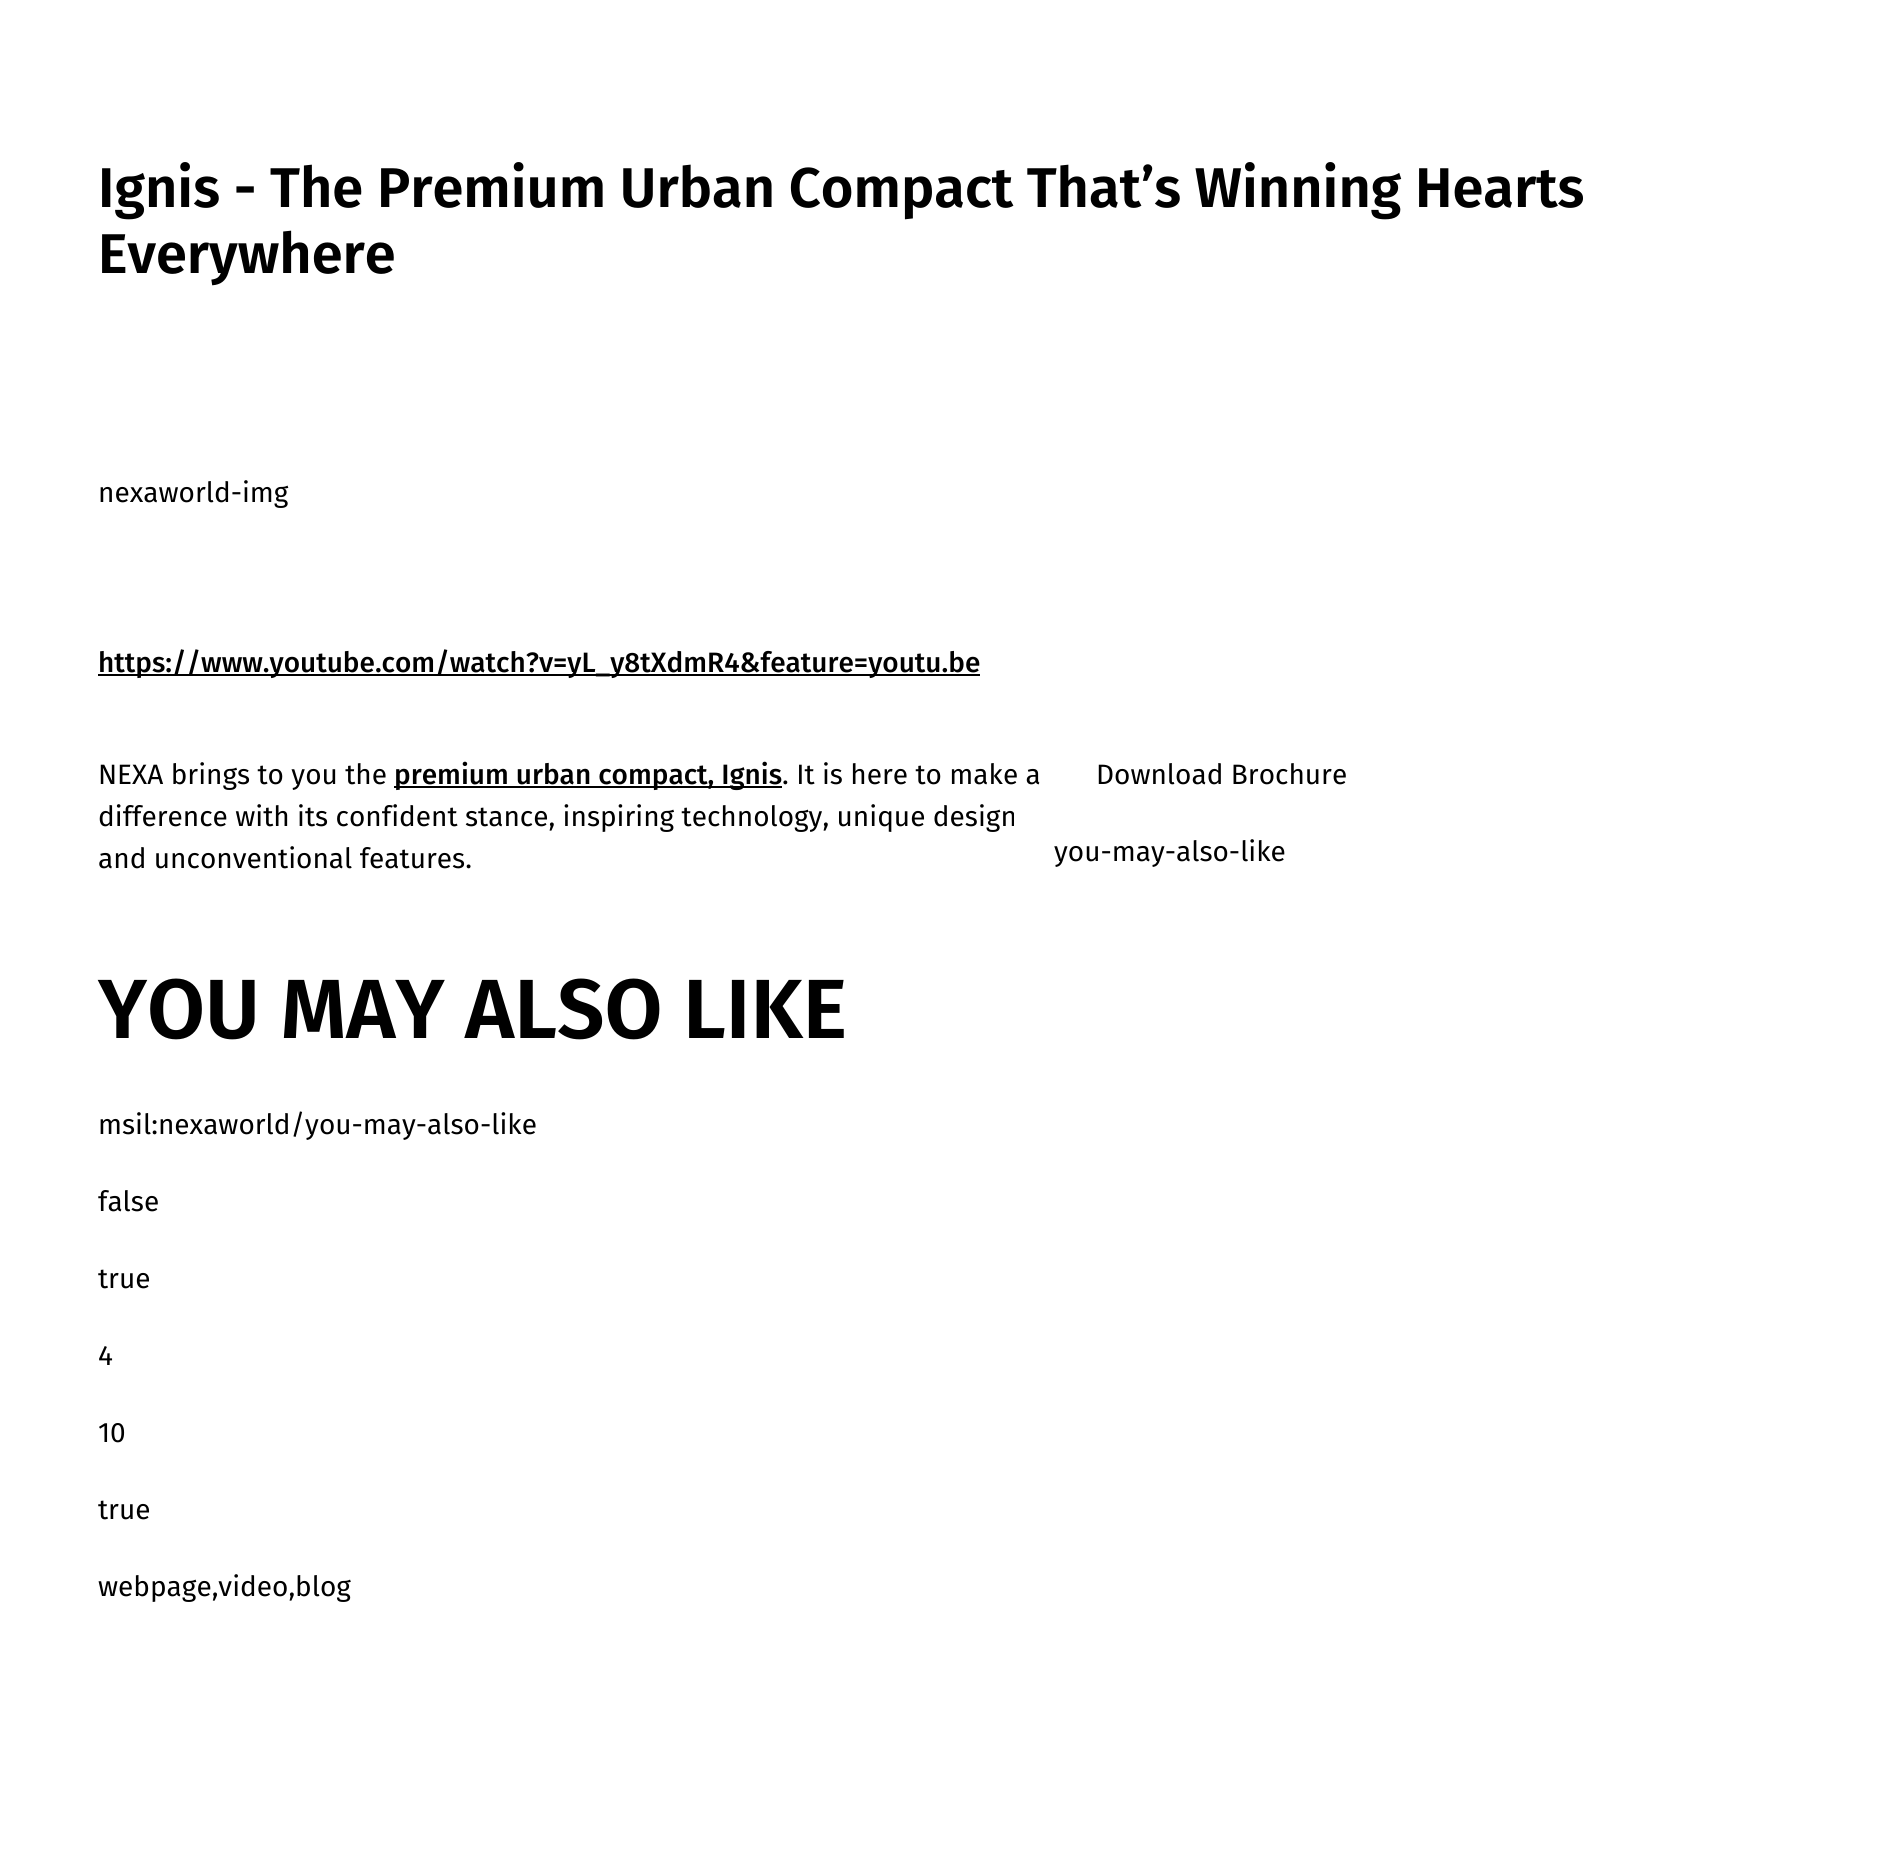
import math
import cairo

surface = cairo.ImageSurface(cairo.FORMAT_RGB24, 1892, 1867)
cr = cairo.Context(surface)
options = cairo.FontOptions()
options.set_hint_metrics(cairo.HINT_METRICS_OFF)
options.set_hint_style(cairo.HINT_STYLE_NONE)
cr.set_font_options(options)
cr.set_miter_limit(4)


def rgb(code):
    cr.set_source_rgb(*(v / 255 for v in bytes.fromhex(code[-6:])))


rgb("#ffffff")
cr.paint()
rgb("#000000")
cr.rectangle(98, 674, 882, 2)
cr.fill()
cr.rectangle(394, 786, 388, 2)
cr.fill()
cr.select_font_face("Fira Sans SemiBold")
cr.set_font_size(56)
cr.move_to(98, 207)
cr.show_text("Ignis - The Premium Urban Compact That’s Winning Hearts")
cr.move_to(98, 273)
cr.show_text("Everywhere")
cr.select_font_face("Fira Sans")
cr.set_font_size(28)
cr.move_to(98, 502)
cr.show_text("nexaworld-img")
cr.select_font_face("Fira Sans Medium")
cr.move_to(98, 672)
cr.show_text("https://www.youtube.com/watch?v=yL_y8tXdmR4&feature=youtu.be")
cr.select_font_face("Fira Sans")
cr.move_to(98, 784)
cr.show_text("NEXA brings to you the")
cr.select_font_face("Fira Sans Medium")
cr.move_to(394, 784)
cr.show_text("premium urban compact, Ignis")
cr.select_font_face("Fira Sans")
for x, y, s in [
    (782, 784, ". It is here to make a"),
    (98, 826, "difference with its confident stance, inspiring technology, unique design"),
    (98, 868, "and unconventional features."),
    (1096, 784, "Download Brochure"),
    (1054, 861, "you-may-also-like"),
]:
    cr.move_to(x, y)
    cr.show_text(s)
cr.select_font_face("Fira Sans SemiBold")
cr.set_font_size(84)
cr.move_to(98, 1038)
cr.show_text("YOU MAY ALSO LIKE")
cr.select_font_face("Fira Sans")
cr.set_font_size(28)
for x, y, s in [
    (98, 1134, "msil:nexaworld/you-may-also-like"),
    (98, 1211, "false"),
    (98, 1288, "true"),
    (98, 1365, "4"),
    (98, 1442, "10"),
    (98, 1519, "true"),
    (98, 1596, "webpage,video,blog"),
]:
    cr.move_to(x, y)
    cr.show_text(s)
surface.write_to_png("page.png")
